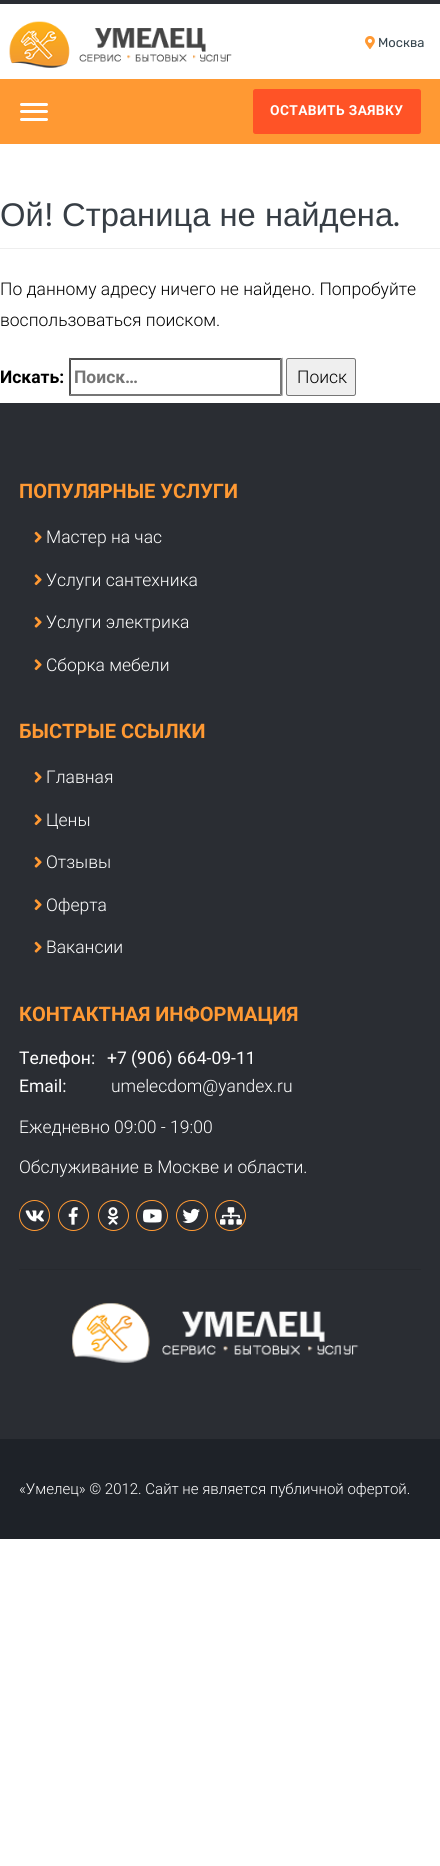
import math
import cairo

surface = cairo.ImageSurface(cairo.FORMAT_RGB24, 440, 1866)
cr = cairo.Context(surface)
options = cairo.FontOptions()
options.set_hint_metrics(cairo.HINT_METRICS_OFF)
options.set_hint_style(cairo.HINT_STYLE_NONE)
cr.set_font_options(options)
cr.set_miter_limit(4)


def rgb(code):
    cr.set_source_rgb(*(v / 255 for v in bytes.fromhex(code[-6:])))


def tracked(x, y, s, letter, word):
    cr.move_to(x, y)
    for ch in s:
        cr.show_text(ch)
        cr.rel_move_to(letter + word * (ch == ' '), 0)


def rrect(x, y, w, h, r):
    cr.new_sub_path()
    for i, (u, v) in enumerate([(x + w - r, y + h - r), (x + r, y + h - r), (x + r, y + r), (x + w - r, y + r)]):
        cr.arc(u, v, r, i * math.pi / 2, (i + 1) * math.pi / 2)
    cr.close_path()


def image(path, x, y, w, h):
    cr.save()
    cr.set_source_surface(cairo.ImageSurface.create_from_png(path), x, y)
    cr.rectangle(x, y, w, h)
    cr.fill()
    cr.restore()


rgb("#ffffff")
cr.paint()
rgb("#2a2d33")
cr.rectangle(0, 0, 440, 4)
cr.fill()
image("img/1.png", 9, 21, 223, 47)
image("img/2.png", 365, 36, 10, 14)
rgb("#ff9933")
cr.rectangle(0, 79, 440, 65)
cr.fill()
rgb("#ffffff")
rrect(20, 103, 28, 3, 1.5)
cr.fill()
rrect(20, 110, 28, 3, 1.5)
cr.fill()
rrect(20, 118, 28, 3, 1.5)
cr.fill()
rgb("#ff5326")
rrect(254.5, 90.5, 165, 42, 1)
cr.fill_preserve()
cr.set_line_width(3)
cr.stroke()
rgb("#eeeeee")
cr.rectangle(0, 248, 440, 1)
cr.fill()
rgb("#4f4f4f")
cr.new_path()
cr.move_to(69, 358)
cr.line_to(282, 358)
cr.line_to(280, 360)
cr.line_to(71, 360)
cr.close_path()
cr.fill()
rgb("#767676")
cr.new_path()
cr.move_to(282.5, 357.5)
cr.line_to(282.5, 396)
cr.line_to(280, 394)
cr.line_to(280, 360)
cr.close_path()
cr.fill()
cr.new_path()
cr.move_to(282, 396)
cr.line_to(69, 396)
cr.line_to(71, 394)
cr.line_to(280, 394)
cr.close_path()
cr.fill()
rgb("#4f4f4f")
cr.new_path()
cr.move_to(69, 396)
cr.line_to(69, 357.5)
cr.line_to(71, 360)
cr.line_to(71, 394)
cr.close_path()
cr.fill()
rgb("#efefef")
rrect(286.5, 358.5, 69, 37, 2)
cr.fill_preserve()
rgb("#767676")
cr.set_line_width(1)
cr.stroke()
rgb("#2a2d33")
cr.rectangle(0, 403, 440, 1036)
cr.fill()
image("img/3.png", 34, 531, 8, 12)
image("img/4.png", 34, 574, 8, 12)
image("img/3.png", 34, 616, 8, 12)
image("img/4.png", 34, 659, 8, 12)
image("img/3.png", 34, 771, 8, 12)
image("img/4.png", 34, 814, 8, 12)
image("img/3.png", 34, 856, 8, 12)
image("img/4.png", 34, 899, 8, 12)
image("img/3.png", 34, 941, 8, 12)
cr.arc(34.5, 1215.5, 15, 0, 2 * math.pi)
rgb("#ff9933")
cr.stroke()
image("img/5.png", 25, 1210, 19, 12)
cr.arc(73.5, 1215.5, 15, 0, 2 * math.pi)
cr.stroke()
image("img/6.png", 68, 1207, 10, 18)
cr.arc(113.5, 1215.5, 15, 0, 2 * math.pi)
cr.stroke()
image("img/7.png", 107, 1207, 12, 18)
rrect(136.5, 1200.5, 31, 30, 15)
cr.stroke()
image("img/8.png", 143, 1209, 19, 14)
rrect(176.5, 1200.5, 31, 30, 15)
cr.stroke()
image("img/9.png", 182, 1208, 18, 15)
cr.arc(230.5, 1215.5, 15, 0, 2 * math.pi)
cr.stroke()
image("img/10.png", 220, 1207, 22, 18)
rgb("#26292e")
cr.rectangle(19, 1269, 402, 1)
cr.fill()
image("img/11.png", 72, 1303, 287, 60)
rgb("#1e2228")
cr.rectangle(0, 1439, 440, 100)
cr.fill()
cr.select_font_face("Rubik")
cr.set_font_size(13)
rgb("#36454e")
cr.move_to(378, 47)
cr.show_text("Моcква")
cr.select_font_face("Roboto", cairo.FONT_SLANT_NORMAL, cairo.FONT_WEIGHT_BOLD)
cr.set_font_size(13.75)
rgb("#ffffff")
tracked(270, 115, "ОСТАВИТЬ ЗАЯВКУ", 0.4, 0)
cr.select_font_face("Liberation Sans")
cr.set_font_size(32.75)
rgb("#373e45")
cr.move_to(0, 226)
cr.show_text("Ой")
cr.select_font_face("Poppins")
cr.move_to(44, 226)
cr.show_text("!")
cr.select_font_face("Liberation Sans")
cr.move_to(62, 226)
cr.show_text("Страница не найдена")
cr.select_font_face("Poppins")
cr.move_to(393, 226)
cr.show_text(".")
cr.select_font_face("Roboto Light")
cr.set_font_size(17.5)
rgb("#000000")
cr.move_to(0, 295)
cr.show_text("По данному адресу ничего не найдено. Попробуйте")
cr.move_to(0, 326)
cr.show_text("воспользоваться поиском.")
cr.select_font_face("Roboto", cairo.FONT_SLANT_NORMAL, cairo.FONT_WEIGHT_BOLD)
cr.move_to(0, 383)
cr.show_text("Искать:")
rgb("#757575")
cr.move_to(74, 383)
cr.show_text("Поиск…")
cr.select_font_face("Roboto Light")
rgb("#000000")
cr.move_to(297, 383)
cr.show_text("Поиск")
cr.select_font_face("Roboto", cairo.FONT_SLANT_NORMAL, cairo.FONT_WEIGHT_BOLD)
cr.set_font_size(20)
rgb("#ff9933")
cr.move_to(19, 498)
cr.show_text("ПОПУЛЯРНЫЕ УСЛУГИ")
cr.select_font_face("Roboto Light")
cr.set_font_size(17.5)
rgb("#ffffff")
for x, y, s in [
    (46, 543, "Мастер на час"),
    (46, 586, "Услуги сантехника"),
    (46, 628, "Услуги электрика"),
    (46, 671, "Сборка мебели"),
]:
    cr.move_to(x, y)
    cr.show_text(s)
cr.select_font_face("Roboto", cairo.FONT_SLANT_NORMAL, cairo.FONT_WEIGHT_BOLD)
cr.set_font_size(20)
rgb("#ff9933")
cr.move_to(19, 738)
cr.show_text("БЫСТРЫЕ ССЫЛКИ")
cr.select_font_face("Roboto Light")
cr.set_font_size(17.5)
rgb("#ffffff")
for x, y, s in [
    (46, 783, "Главная"),
    (46, 826, "Цены"),
    (46, 868, "Отзывы"),
    (46, 911, "Оферта"),
    (46, 953, "Вакансии"),
]:
    cr.move_to(x, y)
    cr.show_text(s)
cr.select_font_face("Roboto", cairo.FONT_SLANT_NORMAL, cairo.FONT_WEIGHT_BOLD)
cr.set_font_size(20)
rgb("#ff9933")
cr.move_to(19, 1021)
cr.show_text("КОНТАКТНАЯ ИНФОРМАЦИЯ")
cr.select_font_face("Roboto")
cr.set_font_size(17.5)
rgb("#ffffff")
for x, y, s in [
    (19, 1064, "Телефон:"),
    (107, 1064, "+7 (906) 664-09-11"),
    (19, 1092, "Email:"),
]:
    cr.move_to(x, y)
    cr.show_text(s)
cr.select_font_face("Roboto Light")
for x, y, s in [
    (111, 1092, "umelecdom@yandex.ru"),
    (19, 1133, "Ежедневно 09:00 - 19:00"),
    (19, 1173, "Обслуживание в Москве и области."),
]:
    cr.move_to(x, y)
    cr.show_text(s)
cr.set_font_size(15)
cr.move_to(19, 1494)
cr.show_text("«Умелец» © 2012. Сайт не является публичной офертой.")
surface.write_to_png("page.png")
